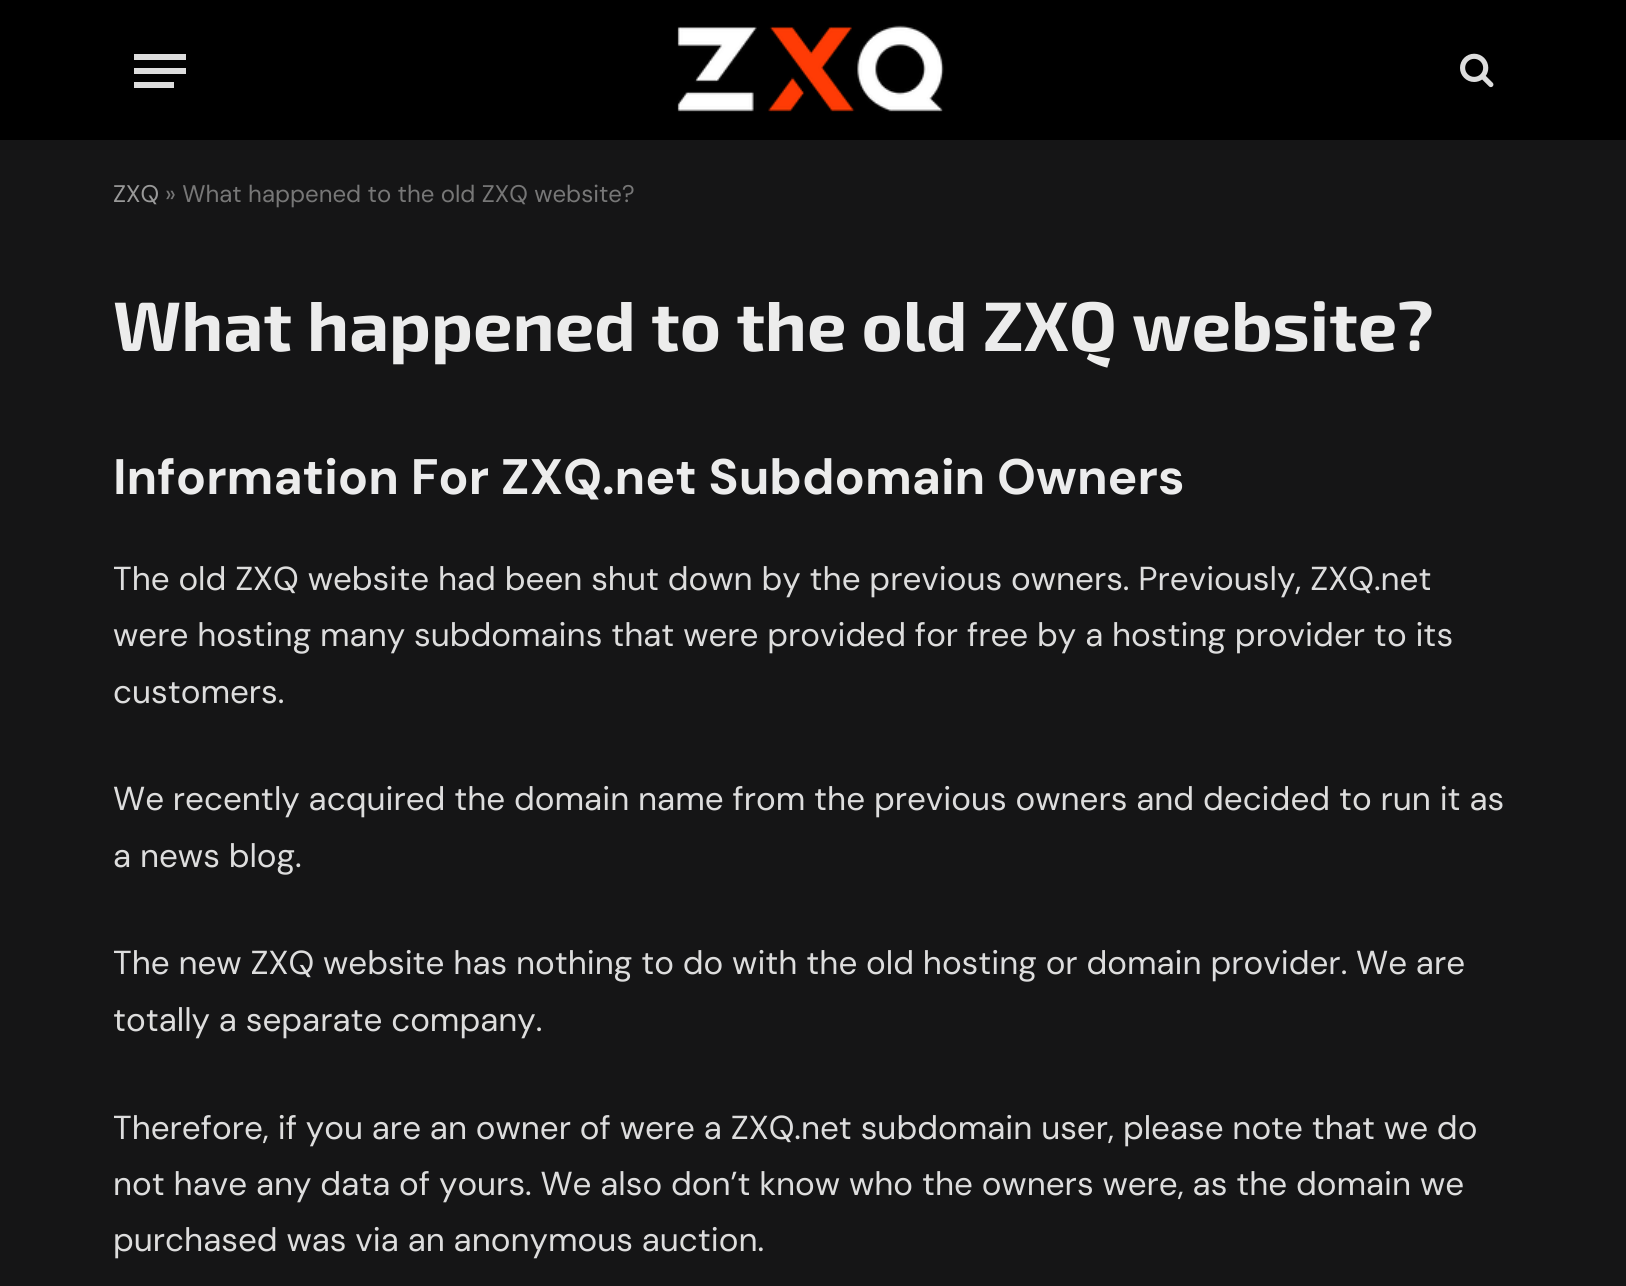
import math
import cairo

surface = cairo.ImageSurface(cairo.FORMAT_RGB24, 1626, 1286)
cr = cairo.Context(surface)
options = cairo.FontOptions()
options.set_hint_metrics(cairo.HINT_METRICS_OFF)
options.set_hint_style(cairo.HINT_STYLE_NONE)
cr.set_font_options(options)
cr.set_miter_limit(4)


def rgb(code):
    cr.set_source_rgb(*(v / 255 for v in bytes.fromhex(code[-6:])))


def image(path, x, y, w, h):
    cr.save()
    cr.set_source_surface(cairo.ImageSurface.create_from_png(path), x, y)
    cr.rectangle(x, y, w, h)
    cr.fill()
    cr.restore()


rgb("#151516")
cr.paint()
for x, y, w, h, color in [
    (0, 0, 1626, 140, "#000000"),
    (134, 82, 40, 6, "#dddddd"),
    (134, 54, 52, 6, "#dddddd"),
    (134, 68, 52, 6, "#dddddd"),
]:
    rgb(color)
    cr.rectangle(x, y, w, h)
    cr.fill()
image("img/1.png", 677, 25, 267, 87)
image("img/2.png", 1460, 53, 34, 35)
cr.select_font_face("DM Sans")
cr.set_font_size(24)
rgb("#999999")
cr.move_to(113, 202)
cr.show_text("ZXQ")
rgb("#777777")
cr.move_to(165, 202)
cr.show_text("» What happened to the old ZXQ website?")
cr.select_font_face("Exo 2", cairo.FONT_SLANT_NORMAL, cairo.FONT_WEIGHT_BOLD)
cr.set_font_size(70)
rgb("#ececec")
cr.move_to(113, 351)
cr.show_text("What happened to the old ZXQ website?")
cr.select_font_face("DM Sans", cairo.FONT_SLANT_NORMAL, cairo.FONT_WEIGHT_BOLD)
cr.set_font_size(49.8)
cr.move_to(113, 494)
cr.show_text("Information For ZXQ.net Subdomain Owners")
cr.select_font_face("DM Sans")
cr.set_font_size(33.2)
rgb("#dddddd")
for x, y, s in [
    (113, 590, "The old ZXQ website had been shut down by the previous owners. Previously, ZXQ.net"),
    (113, 646, "were hosting many subdomains that were provided for free by a hosting provider to its"),
    (113, 703, "customers."),
    (113, 810, "We recently acquired the domain name from the previous owners and decided to run it as"),
    (113, 867, "a news blog."),
    (113, 974, "The new ZXQ website has nothing to do with the old hosting or domain provider. We are"),
    (113, 1031, "totally a separate company."),
    (113, 1139, "Therefore, if you are an owner of were a ZXQ.net subdomain user, please note that we do"),
    (113, 1195, "not have any data of yours. We also don’t know who the owners were, as the domain we"),
    (113, 1251, "purchased was via an anonymous auction."),
]:
    cr.move_to(x, y)
    cr.show_text(s)
surface.write_to_png("page.png")
